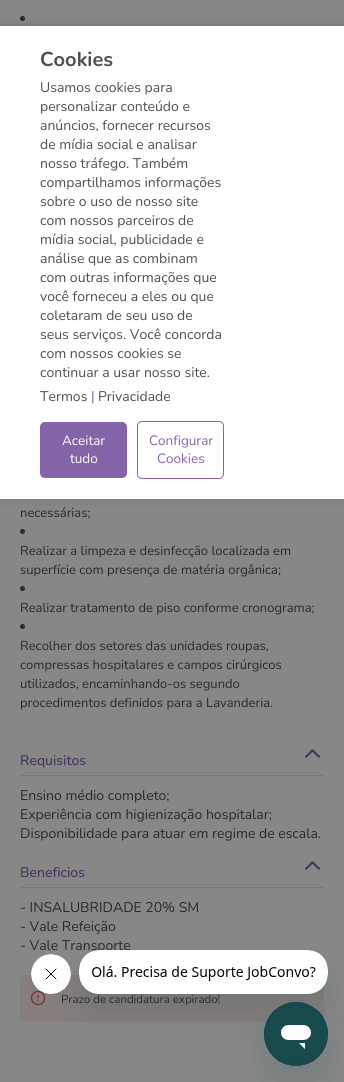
import math
import cairo

surface = cairo.ImageSurface(cairo.FORMAT_RGB24, 344, 1082)
cr = cairo.Context(surface)
options = cairo.FontOptions()
options.set_hint_metrics(cairo.HINT_METRICS_OFF)
options.set_hint_style(cairo.HINT_STYLE_NONE)
cr.set_font_options(options)
cr.set_miter_limit(4)


def rgb(code):
    cr.set_source_rgb(*(v / 255 for v in bytes.fromhex(code[-6:])))


def rrect(x, y, w, h, r):
    cr.new_sub_path()
    for i, (u, v) in enumerate([(x + w - r, y + h - r), (x + r, y + h - r), (x + r, y + r), (x + w - r, y + r)]):
        cr.arc(u, v, r, i * math.pi / 2, (i + 1) * math.pi / 2)
    cr.close_path()


def soft_shadow(x, y, w, h, r, blur, alpha):
    cr.push_group_with_content(cairo.CONTENT_ALPHA)
    cr.set_operator(cairo.OPERATOR_SOURCE)
    for i in range(15, -16, -2):
        e = blur * i / 6
        if min(w, h) + 2 * e > 0:
            cr.set_source_rgba(0, 0, 0, alpha * math.erfc((i - 1) / 8.5) / 2)
            rrect(x - e, y - e, w + 2 * e, h + 2 * e, max(0, min(r + e + blur * .6, min(w, h) / 2 + e)))
            cr.fill()
    cr.mask(cr.pop_group())


def image(path, x, y, w, h):
    cr.save()
    cr.set_source_surface(cairo.ImageSurface.create_from_png(path), x, y)
    cr.rectangle(x, y, w, h)
    cr.fill()
    cr.restore()


rgb("#878787")
cr.paint()
rgb("#2a2a2a")
cr.arc(22.5, 18.5, 2.5, 0, 2 * math.pi)
cr.fill()
rgb("#000000")
soft_shadow(0, 26, 344, 473, 0, 5, 0.13)
rgb("#ffffff")
cr.rectangle(0, 26, 344, 473)
cr.fill()
rgb("#8463a9")
rrect(40, 422, 87, 56, 5)
cr.fill()
rrect(137.5, 421.5, 86, 57, 4.5)
cr.set_line_width(1)
cr.stroke()
rgb("#2a2a2a")
cr.arc(22.5, 531.5, 2.5, 0, 2 * math.pi)
cr.fill()
cr.arc(22.5, 588.5, 2.5, 0, 2 * math.pi)
cr.fill()
cr.arc(22.5, 626.5, 2.5, 0, 2 * math.pi)
cr.fill()
rgb("#777777")
cr.rectangle(20, 775, 304, 1)
cr.fill()
image("img/1.png", 305, 749, 15, 9)
cr.rectangle(20, 887, 304, 1)
cr.fill()
image("img/1.png", 305, 861, 15, 9)
rgb("#867d7d")
rrect(20, 975, 304, 47, 5)
cr.fill()
image("img/2.png", 30, 990, 16, 16)
image("img/4.png", 31, 954, 40, 40)
rgb("#17494d")
soft_shadow(79, 970, 249, 44, 20, 15, 0.15)
cr.select_font_face("Nunito", cairo.FONT_SLANT_NORMAL, cairo.FONT_WEIGHT_BOLD)
cr.set_font_size(20)
rgb("#505050")
cr.move_to(40, 66)
cr.show_text("Cookies")
cr.select_font_face("Nunito")
cr.set_font_size(14)
for x, y, s in [
    (40, 92, "Usamos cookies para"),
    (40, 111, "personalizar conteúdo e"),
    (40, 130, "anúncios, fornecer recursos"),
    (40, 149, "de mídia social e analisar"),
    (40, 168, "nosso tráfego. Também"),
    (40, 187, "compartilhamos informações"),
    (40, 206, "sobre o uso de nosso site"),
    (40, 225, "com nossos parceiros de"),
    (40, 244, "mídia social, publicidade e"),
    (40, 263, "análise que as combinam"),
    (40, 282, "com outras informações que"),
    (40, 301, "você forneceu a eles ou que"),
    (40, 320, "coletaram de seu uso de"),
    (40, 339, "seus serviços. Você concorda"),
    (40, 358, "com nossos cookies se"),
    (40, 377, "continuar a usar nosso site."),
    (40, 401, "Termos"),
]:
    cr.move_to(x, y)
    cr.show_text(s)
rgb("#8463a9")
cr.move_to(91, 401)
cr.show_text("|")
rgb("#505050")
cr.move_to(98, 401)
cr.show_text("Privacidade")
cr.set_font_size(13.5)
rgb("#ffffff")
cr.move_to(62, 445)
cr.show_text("Aceitar")
cr.move_to(70, 463)
cr.show_text("tudo")
rgb("#8463a9")
cr.move_to(149, 445)
cr.show_text("Configurar")
cr.move_to(157, 463)
cr.show_text("Cookies")
cr.set_font_size(13)
rgb("#2a2a2a")
for x, y, s in [
    (20, 517, "necessárias;"),
    (20, 555, "Realizar a limpeza e desinfecção localizada em"),
    (20, 574, "superfície com presença de matéria orgânica;"),
    (20, 612, "Realizar tratamento de piso conforme cronograma;"),
    (20, 650, "Recolher dos setores das unidades roupas,"),
    (20, 669, "compressas hospitalares e campos cirúrgicos"),
    (20, 688, "utilizados, encaminhando-os segundo"),
    (20, 707, "procedimentos definidos para a Lavanderia."),
]:
    cr.move_to(x, y)
    cr.show_text(s)
cr.select_font_face("Nunito Medium")
cr.set_font_size(14)
rgb("#46345a")
cr.move_to(20, 765)
cr.show_text("Requisitos")
cr.select_font_face("Nunito")
rgb("#2a2a2a")
for x, y, s in [
    (20, 800, "Ensino médio completo;"),
    (20, 819, "Experiência com higienização hospitalar;"),
    (20, 838, "Disponibilidade para atuar em regime de escala."),
]:
    cr.move_to(x, y)
    cr.show_text(s)
cr.select_font_face("Nunito Medium")
rgb("#46345a")
cr.move_to(20, 877)
cr.show_text("Beneficios")
cr.select_font_face("Nunito")
rgb("#2a2a2a")
for x, y, s in [
    (20, 912, "- INSALUBRIDADE 20% SM"),
    (20, 931, "- Vale Refeição"),
    (20, 950, "- Vale Transporte"),
]:
    cr.move_to(x, y)
    cr.show_text(s)
cr.set_font_size(11.5)
cr.move_to(61, 1003)
cr.show_text("Prazo de candidatura expirado!")
image("img/3.png", 79, 950, 249, 44)
rgb("#17494d")
soft_shadow(264, 1022, 64, 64, 32, 15, 0.15)
image("img/5.png", 264, 1002, 64, 64)
surface.write_to_png("page.png")
